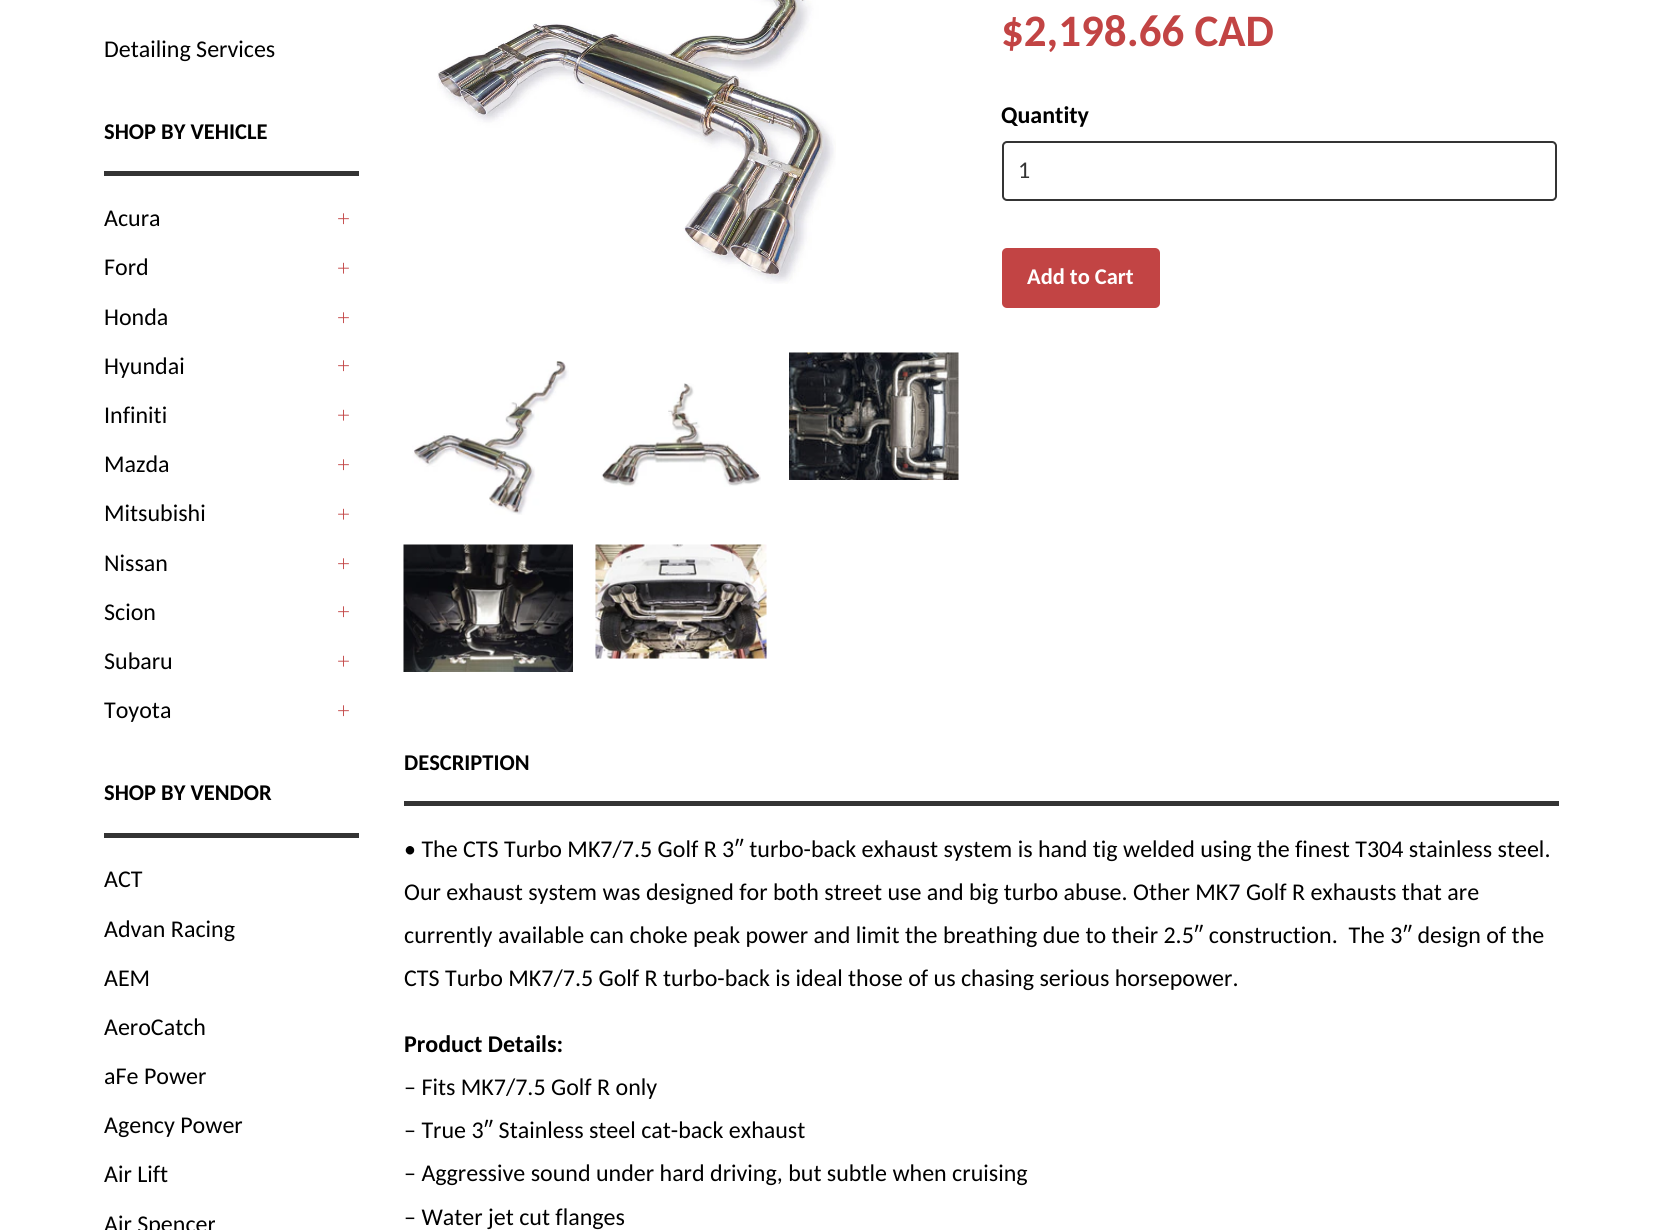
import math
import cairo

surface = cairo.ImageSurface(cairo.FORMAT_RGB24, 1661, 1230)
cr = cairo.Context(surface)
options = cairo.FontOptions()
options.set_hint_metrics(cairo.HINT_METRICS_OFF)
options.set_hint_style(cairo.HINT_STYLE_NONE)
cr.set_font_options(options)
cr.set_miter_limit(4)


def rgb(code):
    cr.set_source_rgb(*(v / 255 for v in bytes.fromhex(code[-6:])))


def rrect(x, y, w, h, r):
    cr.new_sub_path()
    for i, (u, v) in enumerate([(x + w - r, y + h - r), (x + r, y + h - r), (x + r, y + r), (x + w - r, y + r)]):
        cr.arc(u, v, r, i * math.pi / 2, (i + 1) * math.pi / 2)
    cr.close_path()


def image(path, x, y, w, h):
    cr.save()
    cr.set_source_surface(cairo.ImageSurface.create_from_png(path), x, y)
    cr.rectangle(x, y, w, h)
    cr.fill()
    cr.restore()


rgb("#ffffff")
cr.paint()
rgb("#343434")
cr.rectangle(104, 171, 255, 5)
cr.fill()
image("img/1.png", 338, 213, 11, 12)
image("img/2.png", 338, 262, 11, 12)
image("img/1.png", 338, 312, 11, 12)
image("img/1.png", 338, 360, 11, 12)
image("img/2.png", 338, 409, 11, 12)
image("img/1.png", 338, 459, 11, 12)
image("img/2.png", 338, 508, 11, 12)
image("img/1.png", 338, 558, 11, 12)
image("img/1.png", 338, 606, 11, 12)
image("img/2.png", 338, 655, 11, 12)
image("img/1.png", 338, 705, 11, 12)
cr.rectangle(104, 833, 255, 5)
cr.fill()
image("img/3.png", 437, 0, 399, 284)
rrect(1003, 142, 553, 58, 4)
cr.stroke()
rgb("#c24444")
rrect(1002, 248, 158, 60, 5)
cr.fill()
image("img/4.png", 412, 361, 157, 154)
image("img/5.png", 601, 383, 160, 104)
image("img/6.png", 789, 352, 170, 128)
image("img/7.png", 403, 544, 170, 128)
image("img/8.png", 595, 544, 172, 115)
rgb("#343434")
cr.rectangle(404, 801, 1155, 5)
cr.fill()
cr.select_font_face("Carlito")
cr.set_font_size(24)
rgb("#000000")
cr.move_to(104, 57)
cr.show_text("Detailing Services")
cr.select_font_face("Carlito", cairo.FONT_SLANT_NORMAL, cairo.FONT_WEIGHT_BOLD)
cr.set_font_size(22.5)
cr.move_to(104, 139)
cr.show_text("SHOP BY VEHICLE")
cr.select_font_face("Carlito")
cr.set_font_size(24)
for x, y, s in [
    (104, 226, "Acura"),
    (104, 275, "Ford"),
    (104, 325, "Honda"),
    (104, 374, "Hyundai"),
    (104, 423, "Infiniti"),
    (104, 472, "Mazda"),
    (104, 521, "Mitsubishi"),
    (104, 571, "Nissan"),
    (104, 620, "Scion"),
    (104, 669, "Subaru"),
    (104, 718, "Toyota"),
]:
    cr.move_to(x, y)
    cr.show_text(s)
cr.select_font_face("Carlito", cairo.FONT_SLANT_NORMAL, cairo.FONT_WEIGHT_BOLD)
cr.set_font_size(22.5)
cr.move_to(104, 800)
cr.show_text("SHOP BY VENDOR")
cr.select_font_face("Carlito")
cr.set_font_size(24)
for x, y, s in [
    (104, 887, "ACT"),
    (104, 937, "Advan Racing"),
    (104, 986, "AEM"),
    (104, 1035, "AeroCatch"),
    (104, 1084, "aFe Power"),
    (104, 1133, "Agency Power"),
    (104, 1182, "Air Lift"),
    (104, 1232, "Air Spencer"),
]:
    cr.move_to(x, y)
    cr.show_text(s)
cr.select_font_face("Carlito", cairo.FONT_SLANT_NORMAL, cairo.FONT_WEIGHT_BOLD)
cr.set_font_size(45)
rgb("#c24444")
cr.move_to(1001, 46)
cr.show_text("$2,198.66 CAD")
cr.set_font_size(24)
rgb("#000000")
cr.move_to(1001, 123)
cr.show_text("Quantity")
cr.select_font_face("Carlito")
rgb("#333333")
cr.move_to(1018, 178)
cr.show_text("1")
cr.select_font_face("Carlito", cairo.FONT_SLANT_NORMAL, cairo.FONT_WEIGHT_BOLD)
cr.set_font_size(22.5)
rgb("#ffffff")
cr.move_to(1027, 284)
cr.show_text("Add to Cart")
rgb("#000000")
cr.move_to(404, 770)
cr.show_text("DESCRIPTION")
cr.select_font_face("Carlito")
cr.set_font_size(24)
for x, y, s in [
    (404, 857, "• The CTS Turbo MK7/7.5 Golf R 3″ turbo-back exhaust system is hand tig welded using the finest T304 stainless steel."),
    (404, 900, "Our exhaust system was designed for both street use and big turbo abuse. Other MK7 Golf R exhausts that are"),
    (404, 943, "currently available can choke peak power and limit the breathing due to their 2.5″ construction.  The 3″ design of the"),
    (404, 986, "CTS Turbo MK7/7.5 Golf R turbo-back is ideal those of us chasing serious horsepower."),
]:
    cr.move_to(x, y)
    cr.show_text(s)
cr.select_font_face("Carlito", cairo.FONT_SLANT_NORMAL, cairo.FONT_WEIGHT_BOLD)
cr.move_to(404, 1052)
cr.show_text("Product Details:")
cr.select_font_face("Carlito")
for x, y, s in [
    (404, 1095, "– Fits MK7/7.5 Golf R only"),
    (404, 1138, "– True 3″ Stainless steel cat-back exhaust"),
    (404, 1181, "– Aggressive sound under hard driving, but subtle when cruising"),
    (404, 1225, "– Water jet cut flanges"),
]:
    cr.move_to(x, y)
    cr.show_text(s)
surface.write_to_png("page.png")
